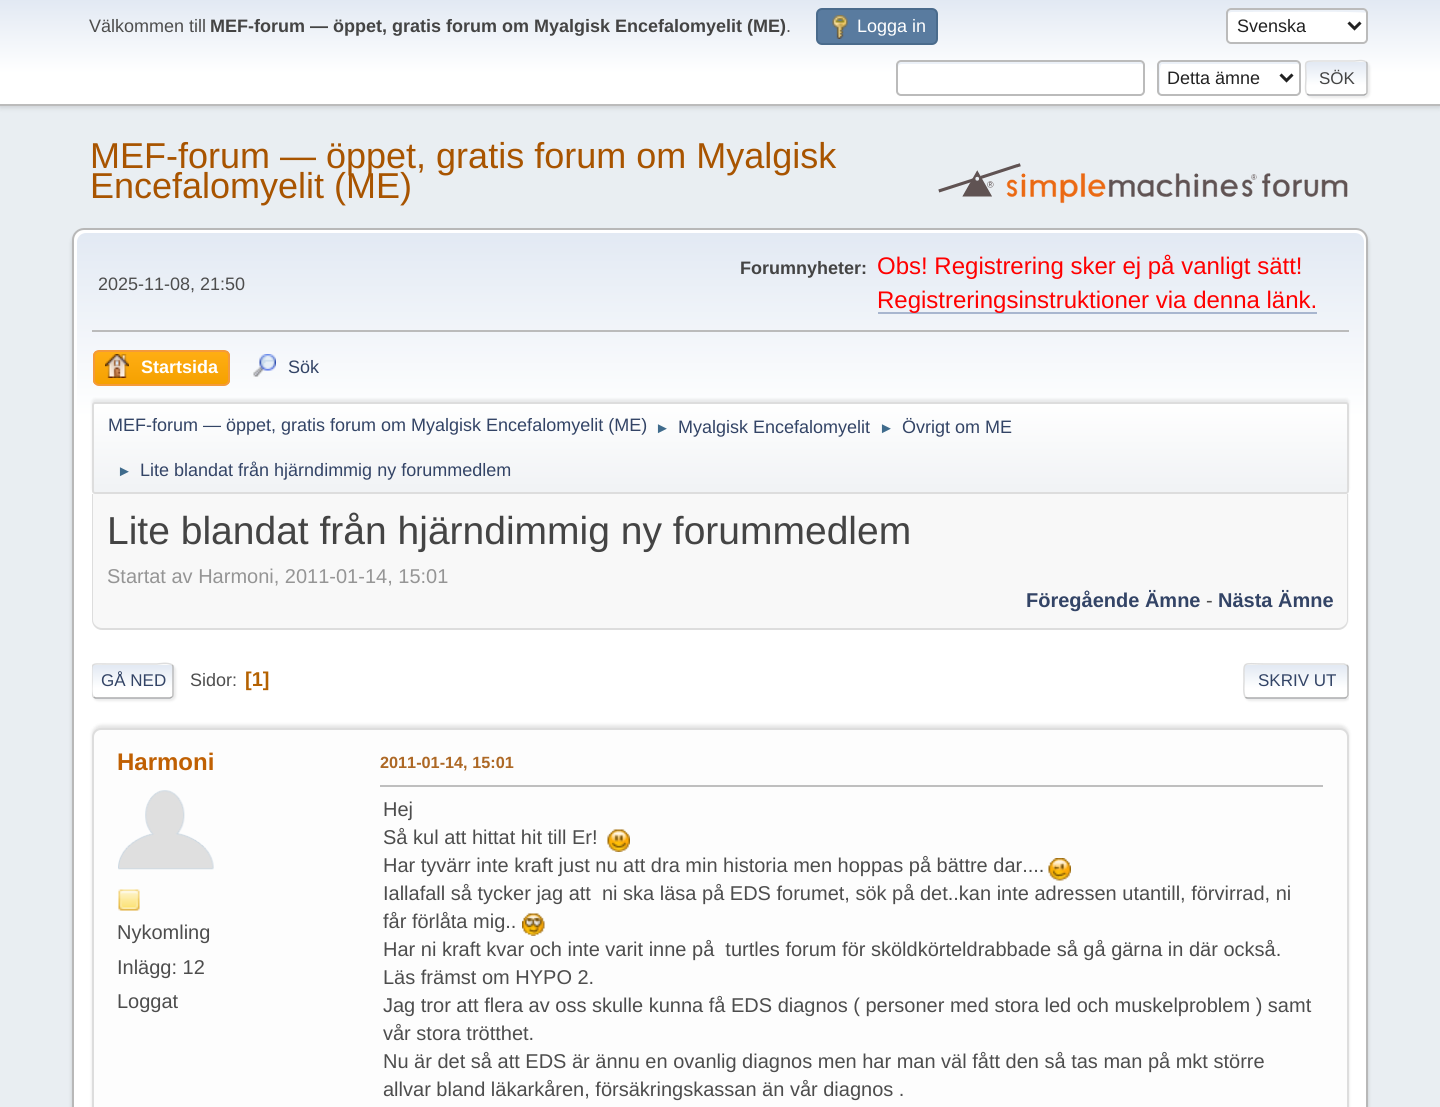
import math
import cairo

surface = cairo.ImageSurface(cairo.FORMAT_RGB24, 1440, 1107)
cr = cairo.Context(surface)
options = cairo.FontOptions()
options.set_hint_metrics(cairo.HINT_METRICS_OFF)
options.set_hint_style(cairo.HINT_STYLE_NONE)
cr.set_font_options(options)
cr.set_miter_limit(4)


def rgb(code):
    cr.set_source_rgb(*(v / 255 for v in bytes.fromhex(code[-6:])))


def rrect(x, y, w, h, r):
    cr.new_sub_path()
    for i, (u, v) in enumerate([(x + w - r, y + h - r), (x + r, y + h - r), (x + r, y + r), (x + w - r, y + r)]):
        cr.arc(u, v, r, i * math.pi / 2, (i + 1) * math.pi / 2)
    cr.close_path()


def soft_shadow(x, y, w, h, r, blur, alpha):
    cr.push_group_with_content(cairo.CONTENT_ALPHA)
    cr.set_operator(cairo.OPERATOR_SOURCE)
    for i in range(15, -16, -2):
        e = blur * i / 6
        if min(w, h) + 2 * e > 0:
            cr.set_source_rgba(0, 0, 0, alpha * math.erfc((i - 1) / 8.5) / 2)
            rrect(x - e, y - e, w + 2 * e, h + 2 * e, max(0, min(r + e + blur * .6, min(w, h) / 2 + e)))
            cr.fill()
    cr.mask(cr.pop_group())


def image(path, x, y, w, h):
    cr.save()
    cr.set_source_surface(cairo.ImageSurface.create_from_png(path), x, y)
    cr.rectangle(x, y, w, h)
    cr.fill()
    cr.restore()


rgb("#e9eef2")
cr.paint()
rgb("#000000")
soft_shadow(0, 2, 1440, 105, 0, 3, 0.16)
gradient = cairo.LinearGradient(720, 0, 720, 104)
gradient.add_color_stop_rgba(0, 0.886, 0.914, 0.953, 1)
gradient.add_color_stop_rgba(0.7, 1, 1, 1, 1)
cr.set_source(gradient)
cr.rectangle(0, 0, 1440, 104)
cr.fill()
rgb("#bbbbbb")
cr.rectangle(0, 104, 1440, 2)
cr.fill()
rgb("#597b9f")
rrect(817, 9, 120, 35, 5)
cr.fill_preserve()
rgb("#4a6b8c")
cr.stroke()
image("img/1.png", 832, 15, 16, 24)
rgb("#ffffff")
rrect(1226, 8, 142, 36, 5)
cr.fill()
rgb("#ecf1f8")
cr.new_path()
cr.move_to(1232, 12)
cr.curve_to(1245, 12, 1365, 11, 1367, 13)
cr.line_to(1367, 12)
cr.curve_to(1367, 10, 1366, 9, 1364, 9)
cr.line_to(1230, 9)
cr.curve_to(1228, 9, 1227, 10, 1227, 12)
cr.line_to(1227, 39)
cr.curve_to(1227, 40, 1227, 41, 1228, 41)
cr.line_to(1228, 15)
cr.curve_to(1228, 13, 1230, 12, 1232, 12)
cr.close_path()
cr.fill()
rrect(1227, 9, 140, 34, 4)
rgb("#bbbbbb")
cr.stroke()
cr.new_path()
cr.move_to(1348.5, 22.5)
cr.line_to(1354.5, 28.5)
cr.line_to(1360.5, 22.5)
rgb("#222222")
cr.set_line_width(3)
cr.stroke()
rgb("#ffffff")
rrect(896, 60, 249, 36, 5)
cr.fill()
rgb("#ecf1f8")
cr.new_path()
cr.move_to(902, 64)
cr.line_to(1142, 64)
cr.line_to(1143, 65)
cr.curve_to(1143, 63, 1142, 62, 1140, 62)
cr.line_to(900, 62)
cr.curve_to(898, 62, 897, 63, 897, 65)
cr.line_to(897, 92)
cr.curve_to(897, 93, 897, 94, 898, 94)
cr.line_to(898, 72)
cr.curve_to(898, 69, 897, 64, 902, 64)
cr.close_path()
cr.fill()
rrect(897, 61, 247, 34, 4)
rgb("#bbbbbb")
cr.set_line_width(2)
cr.stroke()
rgb("#ffffff")
rrect(1157, 60, 144, 36, 5)
cr.fill()
rgb("#ecf1f8")
cr.new_path()
cr.move_to(1162, 64)
cr.line_to(1298, 64)
cr.line_to(1299, 65)
cr.curve_to(1299, 63, 1298, 62, 1296, 62)
cr.line_to(1161, 62)
cr.curve_to(1159, 62, 1158, 63, 1158, 65)
cr.line_to(1158, 92)
cr.curve_to(1158, 93, 1159, 94, 1160, 95)
cr.line_to(1160, 81)
cr.curve_to(1160, 79, 1159, 64, 1162, 64)
cr.close_path()
cr.fill()
rrect(1158, 61, 142, 34, 4)
rgb("#bbbbbb")
cr.stroke()
cr.new_path()
cr.move_to(1280.5, 74.5)
cr.line_to(1286.5, 80.5)
cr.line_to(1292.5, 74.5)
rgb("#222222")
cr.set_line_width(3)
cr.stroke()
rgb("#dddddd")
soft_shadow(1307, 62, 63, 36, 5, 1, 0.57)
rgb("#ffffff")
rrect(1305, 60, 63, 36, 5)
cr.fill()
cr.save()
rrect(1305, 60, 63, 36, 5)
cr.clip()
gradient = cairo.LinearGradient(1337, 62, 1337, 95)
gradient.add_color_stop_rgba(0, 0.886, 0.914, 0.953, 1)
gradient.add_color_stop_rgba(0.7, 1, 1, 1, 1)
cr.set_source(gradient)
cr.rectangle(1305, 62, 63, 33)
cr.fill()
gradient = cairo.LinearGradient(1337, 95, 1337, 128)
gradient.add_color_stop_rgba(0, 0.886, 0.914, 0.953, 1)
gradient.add_color_stop_rgba(0.7, 1, 1, 1, 1)
cr.set_source(gradient)
cr.rectangle(1305, 95, 63, 1)
cr.fill()
cr.restore()
cr.new_path()
cr.move_to(1366, 62)
cr.curve_to(1367, 62.5, 1367, 63.5, 1367, 64.5)
cr.line_to(1367, 91.5)
cr.curve_to(1367, 92.5, 1367, 93.5, 1366, 94)
rgb("#bbbbbb")
cr.set_line_width(1.5)
cr.stroke()
cr.new_path()
cr.move_to(1366, 94)
cr.line_to(1364, 95)
cr.line_to(1309, 95)
cr.line_to(1307, 94)
rgb("#aaaaaa")
cr.stroke()
cr.new_path()
cr.move_to(1307, 94)
cr.curve_to(1304.5, 92, 1306, 81, 1306, 78)
cr.curve_to(1306, 60.5, 1302, 61, 1318.5, 61)
cr.line_to(1354.5, 61)
cr.curve_to(1355.5, 61, 1363.5, 59.5, 1366, 62)
rgb("#dddddd")
cr.stroke()
image("img/2.png", 938, 163, 410, 41)
rgb("#000000")
soft_shadow(72, 231, 1296, 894, 12, 2, 0.14)
rgb("#ffffff")
rrect(73, 229, 1294, 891, 11)
cr.fill_preserve()
rgb("#b8b8b8")
cr.set_line_width(2)
cr.stroke()
gradient = cairo.LinearGradient(720, 232, 720, 497)
gradient.add_color_stop_rgba(0, 0.886, 0.914, 0.953, 1)
gradient.add_color_stop_rgba(0.7, 1, 1, 1, 1)
cr.set_source(gradient)
cr.new_path()
cr.move_to(86, 233)
cr.line_to(1355, 233)
cr.curve_to(1360, 233, 1364, 237, 1364, 242)
cr.line_to(1364, 497)
cr.line_to(77, 497)
cr.line_to(77, 242)
cr.curve_to(77, 237, 81, 233, 86, 233)
cr.close_path()
cr.fill()
rgb("#bbbbbb")
cr.rectangle(92, 330, 1257, 2)
cr.fill()
rgb("#a8b6cf")
cr.rectangle(878, 312, 439, 2)
cr.fill()
cr.save()
rrect(93, 350, 137, 36, 6)
cr.clip()
gradient = cairo.LinearGradient(161, 351, 161, 384)
gradient.add_color_stop_rgba(0, 1, 0.682, 0.078, 1)
gradient.add_color_stop_rgba(1, 0.961, 0.631, 0, 1)
cr.set_source(gradient)
cr.rectangle(93, 351, 137, 33)
cr.fill()
cr.restore()
rrect(94, 351, 135, 34, 5)
rgb("#f49a3a")
cr.stroke()
image("img/3.png", 105, 354, 24, 24)
image("img/4.png", 253, 354, 23, 23)
rgb("#000000")
soft_shadow(92, 399, 1257, 92, 3, 1.5, 0.08)
cr.save()
rrect(92, 402, 1257, 92, 3)
cr.clip()
gradient = cairo.LinearGradient(720, 403, 720, 492)
gradient.add_color_stop_rgba(0, 1, 1, 1, 1)
gradient.add_color_stop_rgba(0.95, 0.945, 0.953, 0.961, 1)
cr.set_source(gradient)
cr.rectangle(92, 404, 1257, 88)
cr.fill()
cr.restore()
rrect(93, 403, 1255, 90, 2)
rgb("#dddddd")
cr.stroke()
rgb("#f8f8f8")
cr.new_path()
cr.move_to(92, 494)
cr.line_to(1349, 494)
cr.line_to(1349, 619)
cr.curve_to(1349, 625, 1344, 630, 1338, 630)
cr.line_to(103, 630)
cr.curve_to(97, 630, 92, 625, 92, 619)
cr.close_path()
cr.fill()
rgb("#dddddd")
cr.set_fill_rule(cairo.FILL_RULE_EVEN_ODD)
cr.new_path()
cr.move_to(92, 494)
cr.line_to(1348, 494)
cr.line_to(1348, 620)
cr.curve_to(1348, 625, 1344, 630, 1338, 630)
cr.line_to(102, 630)
cr.curve_to(96, 630, 92, 625, 92, 620)
cr.close_path()
cr.move_to(93, 494)
cr.line_to(1347, 494)
cr.line_to(1347, 620)
cr.curve_to(1347, 624, 1343, 628, 1338, 628)
cr.line_to(102, 628)
cr.curve_to(97, 628, 93, 624, 93, 620)
cr.close_path()
cr.fill()
rgb("#dddddd")
soft_shadow(93, 665, 83, 36, 5, 1, 0.57)
rgb("#ffffff")
rrect(92, 663, 82, 36, 5)
cr.fill()
cr.save()
cr.set_fill_rule(cairo.FILL_RULE_WINDING)
rrect(92, 663, 82, 36, 5)
cr.clip()
gradient = cairo.LinearGradient(133, 665, 133, 698)
gradient.add_color_stop_rgba(0, 0.886, 0.914, 0.953, 1)
gradient.add_color_stop_rgba(0.7, 1, 1, 1, 1)
cr.set_source(gradient)
cr.rectangle(92, 665, 82, 33)
cr.fill()
gradient = cairo.LinearGradient(133, 698, 133, 731)
gradient.add_color_stop_rgba(0, 0.886, 0.914, 0.953, 1)
gradient.add_color_stop_rgba(0.7, 1, 1, 1, 1)
cr.set_source(gradient)
cr.rectangle(92, 698, 82, 1)
cr.fill()
cr.restore()
cr.new_path()
cr.move_to(172, 665)
cr.curve_to(173, 665.5, 173, 666.5, 173, 667.5)
cr.line_to(173, 694.5)
cr.curve_to(173, 695.5, 173, 696.5, 172, 697)
rgb("#bbbbbb")
cr.set_line_width(1.5)
cr.stroke()
cr.new_path()
cr.move_to(172, 697)
cr.line_to(170, 698)
cr.line_to(95.5, 698)
cr.line_to(93.5, 697)
rgb("#aaaaaa")
cr.stroke()
cr.save()
cr.set_fill_rule(cairo.FILL_RULE_WINDING)
cr.rectangle(92, 653, 1257, 57)
cr.clip()
cr.new_path()
cr.move_to(93.5, 697)
cr.curve_to(91, 695, 92, 684, 92, 681)
cr.curve_to(92, 661.5, 89, 664, 108, 664)
cr.line_to(157, 664)
cr.curve_to(157.5, 664, 169, 662, 172, 665)
rgb("#dddddd")
cr.stroke()
cr.restore()
cr.save()
cr.set_fill_rule(cairo.FILL_RULE_WINDING)
cr.rectangle(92, 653, 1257, 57)
cr.clip()
rgb("#dddddd")
soft_shadow(1245, 665, 105, 36, 5, 1, 0.57)
cr.restore()
rgb("#ffffff")
rrect(1244, 663, 105, 36, 5)
cr.fill()
cr.save()
cr.set_fill_rule(cairo.FILL_RULE_WINDING)
rrect(1244, 663, 105, 36, 5)
cr.clip()
gradient = cairo.LinearGradient(1296, 665, 1296, 698)
gradient.add_color_stop_rgba(0, 0.886, 0.914, 0.953, 1)
gradient.add_color_stop_rgba(0.7, 1, 1, 1, 1)
cr.set_source(gradient)
cr.rectangle(1244, 665, 105, 33)
cr.fill()
gradient = cairo.LinearGradient(1296, 698, 1296, 731)
gradient.add_color_stop_rgba(0, 0.886, 0.914, 0.953, 1)
gradient.add_color_stop_rgba(0.7, 1, 1, 1, 1)
cr.set_source(gradient)
cr.rectangle(1244, 698, 105, 1)
cr.fill()
cr.restore()
cr.new_path()
cr.move_to(1346.5, 665)
cr.curve_to(1347.5, 665.5, 1348, 666.5, 1348, 667.5)
cr.line_to(1348, 694.5)
cr.curve_to(1348, 695.5, 1347.5, 696.5, 1346.5, 697)
rgb("#bbbbbb")
cr.stroke()
cr.new_path()
cr.move_to(1346.5, 697)
cr.curve_to(1346, 698, 1345, 698, 1344, 698)
cr.line_to(1248, 698)
cr.curve_to(1247, 698, 1246, 698, 1245.5, 697)
rgb("#aaaaaa")
cr.stroke()
cr.new_path()
cr.move_to(1245.5, 697)
cr.curve_to(1243, 695, 1244, 684, 1244, 681)
cr.curve_to(1244, 660, 1241.5, 664, 1264, 664)
cr.line_to(1344, 664)
cr.line_to(1346.5, 665)
rgb("#dddddd")
cr.stroke()
rgb("#000000")
soft_shadow(92, 725, 1257, 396, 9, 1.5, 0.1)
rgb("#fdfdfd")
rrect(93, 729, 1255, 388, 8)
cr.fill_preserve()
rgb("#dddddd")
cr.set_line_width(2)
cr.stroke()
image("img/5.png", 118, 790, 96, 80)
image("img/6.png", 118, 889, 22, 22)
rgb("#bfbfbf")
cr.rectangle(380, 785, 943, 2)
cr.fill()
image("img/7.png", 607, 829, 23, 23)
image("img/8.png", 1048, 858, 23, 23)
image("img/9.png", 522, 913, 23, 23)
cr.select_font_face("Liberation Sans")
cr.set_font_size(18)
rgb("#4d4d4d")
cr.move_to(89, 32)
cr.show_text("Välkommen till")
cr.select_font_face("Liberation Sans", cairo.FONT_SLANT_NORMAL, cairo.FONT_WEIGHT_BOLD)
rgb("#444444")
cr.move_to(210, 32)
cr.show_text("MEF-forum — öppet, gratis forum om Myalgisk Encefalomyelit (ME)")
cr.select_font_face("Liberation Sans")
rgb("#4d4d4d")
cr.move_to(786, 32)
cr.show_text(".")
rgb("#ffffff")
cr.move_to(857, 32)
cr.show_text("Logga in")
rgb("#222222")
cr.move_to(1237, 32)
cr.show_text("Svenska")
cr.move_to(1167, 84)
cr.show_text("Detta ämne")
cr.set_font_size(17)
rgb("#444444")
cr.move_to(1319, 84)
cr.show_text("SÖK")
cr.set_font_size(36)
rgb("#a85400")
cr.move_to(90, 168)
cr.show_text("MEF-forum — öppet, gratis forum om Myalgisk")
cr.move_to(90, 198)
cr.show_text("Encefalomyelit (ME)")
cr.set_font_size(18)
rgb("#4d4d4d")
cr.move_to(98, 290)
cr.show_text("2025-11-08, 21:50")
cr.select_font_face("Liberation Sans", cairo.FONT_SLANT_NORMAL, cairo.FONT_WEIGHT_BOLD)
rgb("#444444")
cr.move_to(740, 274)
cr.show_text("Forumnyheter:")
cr.select_font_face("Liberation Sans")
cr.set_font_size(24)
rgb("#ff0000")
cr.move_to(877, 274)
cr.show_text("Obs! Registrering sker ej på vanligt sätt!")
cr.move_to(877, 308)
cr.show_text("Registreringsinstruktioner via denna länk.")
cr.select_font_face("Liberation Sans", cairo.FONT_SLANT_NORMAL, cairo.FONT_WEIGHT_BOLD)
cr.set_font_size(18)
rgb("#ffffff")
cr.move_to(141, 373)
cr.show_text("Startsida")
cr.select_font_face("Liberation Sans")
rgb("#334466")
cr.move_to(288, 373)
cr.show_text("Sök")
cr.move_to(108, 431)
cr.show_text("MEF-forum — öppet, gratis forum om Myalgisk Encefalomyelit (ME)")
cr.set_font_size(15)
rgb("#3f6b8c")
cr.move_to(655, 433)
cr.show_text("►")
cr.set_font_size(18)
rgb("#334466")
cr.move_to(678, 433)
cr.show_text("Myalgisk Encefalomyelit")
cr.set_font_size(15)
rgb("#3f6b8c")
cr.move_to(879, 433)
cr.show_text("►")
cr.set_font_size(18)
rgb("#334466")
cr.move_to(902, 433)
cr.show_text("Övrigt om ME")
cr.set_font_size(15)
rgb("#3f6b8c")
cr.move_to(117, 476)
cr.show_text("►")
cr.set_font_size(18)
rgb("#334466")
cr.move_to(140, 476)
cr.show_text("Lite blandat från hjärndimmig ny forummedlem")
cr.set_font_size(39)
rgb("#444444")
cr.move_to(107, 544)
cr.show_text("Lite blandat från hjärndimmig ny forummedlem")
cr.set_font_size(20)
rgb("#959595")
cr.move_to(107, 583)
cr.show_text("Startat av Harmoni, 2011-01-14, 15:01")
cr.select_font_face("Liberation Sans", cairo.FONT_SLANT_NORMAL, cairo.FONT_WEIGHT_BOLD)
rgb("#334466")
cr.move_to(1026, 607)
cr.show_text("Föregående Ämne")
cr.select_font_face("Liberation Sans")
rgb("#4d4d4d")
cr.move_to(1206, 607)
cr.show_text("-")
cr.select_font_face("Liberation Sans", cairo.FONT_SLANT_NORMAL, cairo.FONT_WEIGHT_BOLD)
rgb("#334466")
cr.move_to(1218, 607)
cr.show_text("Nästa Ämne")
cr.select_font_face("Liberation Sans")
cr.set_font_size(17)
cr.move_to(101, 686)
cr.show_text("GÅ NED")
cr.set_font_size(18)
rgb("#4d4d4d")
cr.move_to(190, 686)
cr.show_text("Sidor:")
cr.select_font_face("Liberation Sans", cairo.FONT_SLANT_NORMAL, cairo.FONT_WEIGHT_BOLD)
cr.set_font_size(20)
rgb("#b46100")
cr.move_to(245, 686)
cr.show_text("[1]")
cr.select_font_face("Liberation Sans")
cr.set_font_size(17)
rgb("#334466")
cr.move_to(1258, 686)
cr.show_text("SKRIV UT")
cr.select_font_face("Liberation Sans", cairo.FONT_SLANT_NORMAL, cairo.FONT_WEIGHT_BOLD)
cr.set_font_size(24)
rgb("#c06002")
cr.move_to(117, 770)
cr.show_text("Harmoni")
cr.select_font_face("Liberation Sans")
cr.set_font_size(20)
rgb("#4d4d4d")
for x, y, s in [
    (117, 939, "Nykomling"),
    (117, 974, "Inlägg: 12"),
    (117, 1008, "Loggat"),
]:
    cr.move_to(x, y)
    cr.show_text(s)
cr.select_font_face("Liberation Sans", cairo.FONT_SLANT_NORMAL, cairo.FONT_WEIGHT_BOLD)
cr.set_font_size(16.25)
rgb("#ad6825")
cr.move_to(380, 768)
cr.show_text("2011-01-14, 15:01")
cr.select_font_face("Liberation Sans")
cr.set_font_size(20)
rgb("#4d4d4d")
for x, y, s in [
    (383, 816, "Hej"),
    (383, 844, "Så kul att hittat hit till Er!"),
    (383, 872, "Har tyvärr inte kraft just nu att dra min historia men hoppas på bättre dar...."),
    (383, 900, "Iallafall så tycker jag att  ni ska läsa på EDS forumet, sök på det..kan inte adressen utantill, förvirrad, ni"),
    (383, 928, "får förlåta mig.."),
    (383, 956, "Har ni kraft kvar och inte varit inne på  turtles forum för sköldkörteldrabbade så gå gärna in där också."),
    (383, 984, "Läs främst om HYPO 2."),
    (383, 1012, "Jag tror att flera av oss skulle kunna få EDS diagnos ( personer med stora led och muskelproblem ) samt"),
    (383, 1040, "vår stora trötthet."),
    (383, 1068, "Nu är det så att EDS är ännu en ovanlig diagnos men har man väl fått den så tas man på mkt större"),
    (383, 1096, "allvar bland läkarkåren, försäkringskassan än vår diagnos ."),
]:
    cr.move_to(x, y)
    cr.show_text(s)
surface.write_to_png("page.png")
